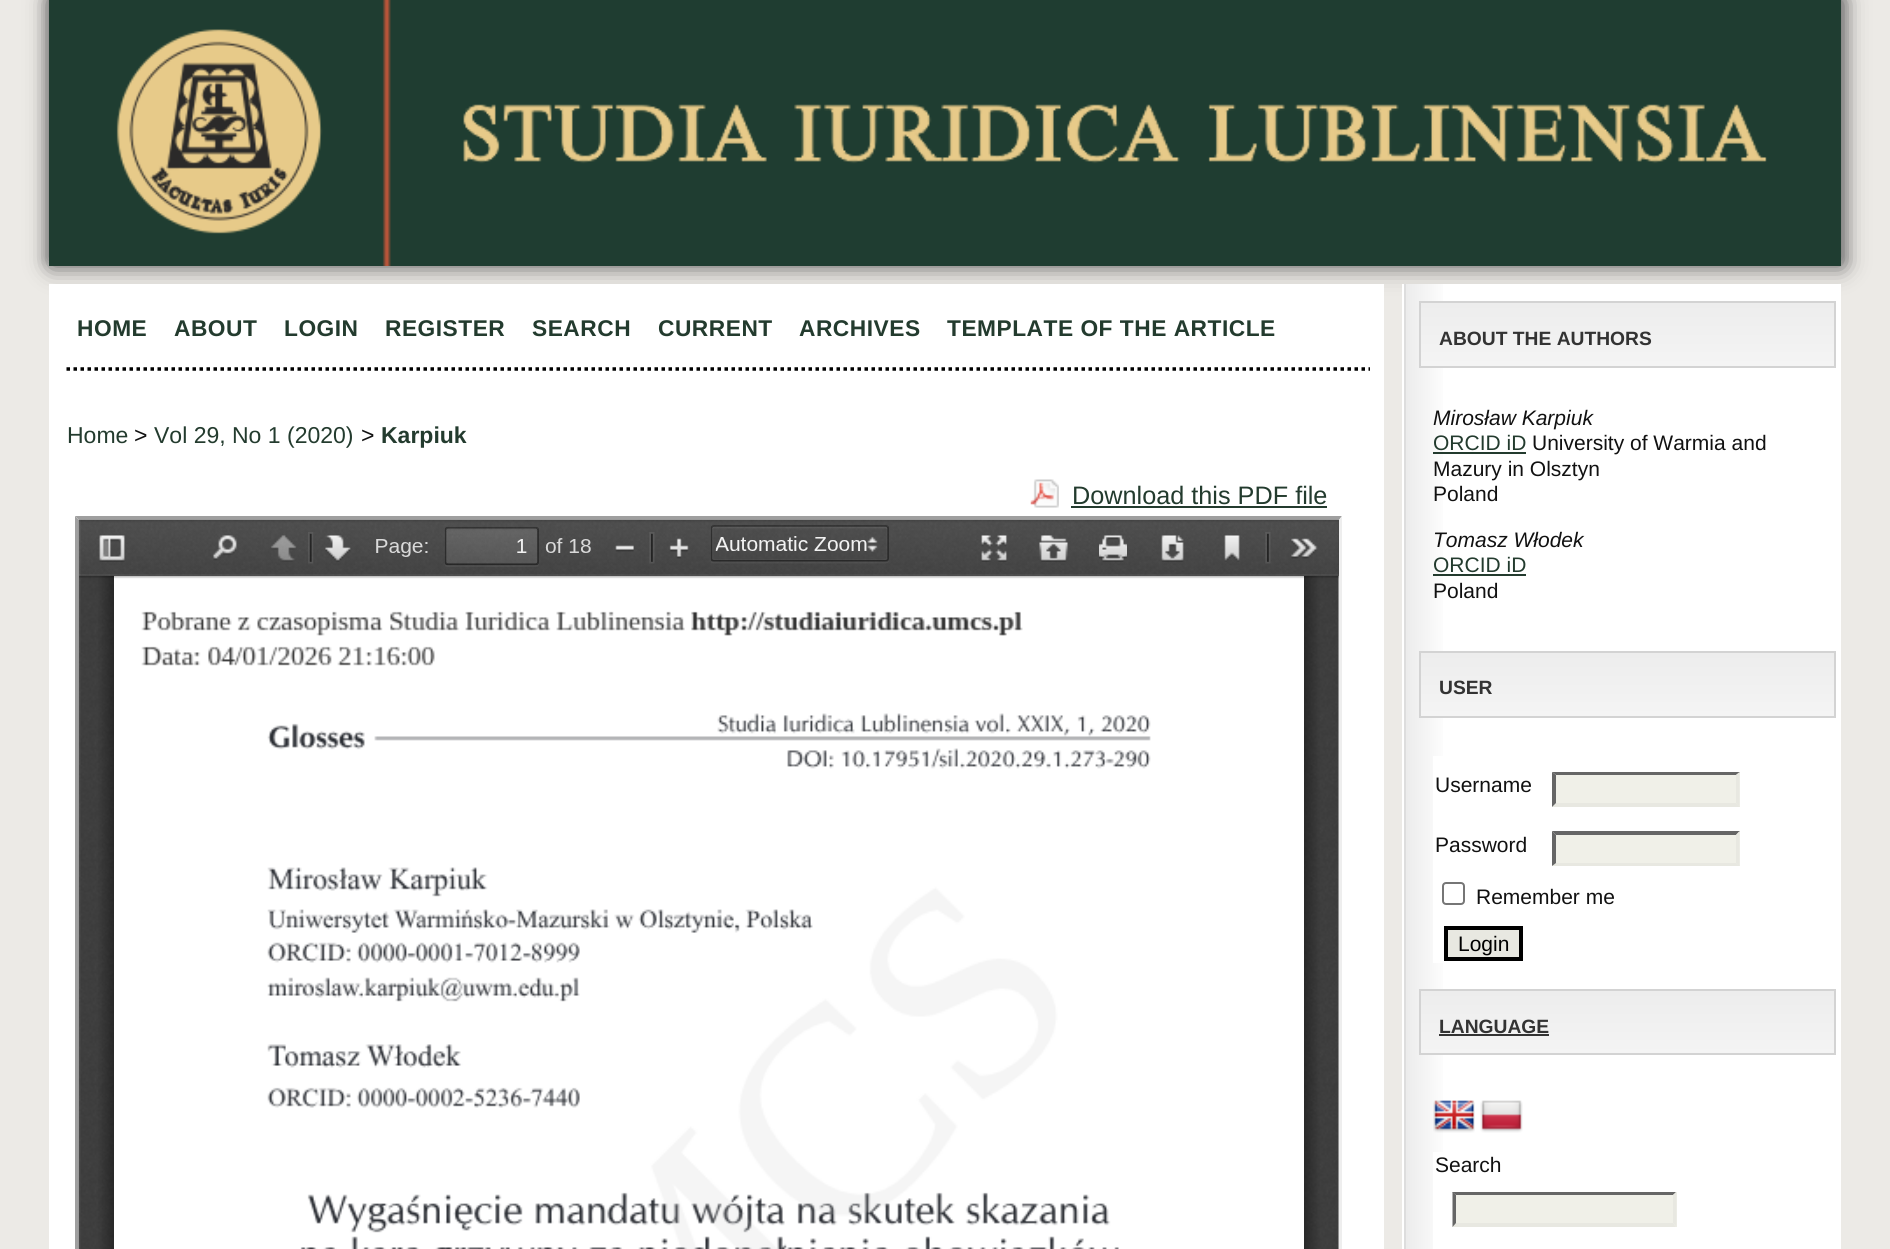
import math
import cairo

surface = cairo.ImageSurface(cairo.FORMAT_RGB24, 1890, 1249)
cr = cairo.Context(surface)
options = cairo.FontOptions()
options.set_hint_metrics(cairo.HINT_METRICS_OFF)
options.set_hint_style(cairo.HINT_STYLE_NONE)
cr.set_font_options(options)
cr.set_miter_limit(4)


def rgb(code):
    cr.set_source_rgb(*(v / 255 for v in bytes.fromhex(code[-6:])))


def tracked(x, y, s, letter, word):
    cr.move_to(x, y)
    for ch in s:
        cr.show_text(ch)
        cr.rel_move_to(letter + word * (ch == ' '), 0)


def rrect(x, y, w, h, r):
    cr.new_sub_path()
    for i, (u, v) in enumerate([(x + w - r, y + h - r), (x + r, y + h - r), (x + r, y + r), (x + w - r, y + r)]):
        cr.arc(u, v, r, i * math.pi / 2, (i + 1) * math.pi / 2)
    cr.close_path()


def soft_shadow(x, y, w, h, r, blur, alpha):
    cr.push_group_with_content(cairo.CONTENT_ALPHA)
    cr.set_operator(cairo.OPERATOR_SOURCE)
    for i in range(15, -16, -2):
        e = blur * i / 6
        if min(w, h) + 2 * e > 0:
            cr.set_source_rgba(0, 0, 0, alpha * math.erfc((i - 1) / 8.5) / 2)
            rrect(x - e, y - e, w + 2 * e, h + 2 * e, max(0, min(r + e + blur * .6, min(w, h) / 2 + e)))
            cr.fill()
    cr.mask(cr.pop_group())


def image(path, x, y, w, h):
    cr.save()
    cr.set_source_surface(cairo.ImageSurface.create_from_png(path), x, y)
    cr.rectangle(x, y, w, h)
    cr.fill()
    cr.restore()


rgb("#eceae6")
cr.paint()
rgb("#606060")
soft_shadow(51, 0, 1792, 266, 0, 12, 1)
rgb("#707070")
soft_shadow(49, -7, 1792, 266, 0, 7, 1)
image("img/1.png", 49, 0, 1792, 266)
rgb("#ffffff")
cr.rectangle(49, 284, 1335, 965)
cr.fill()
cr.new_path()
cr.move_to(66.5, 369)
cr.line_to(1370, 369)
rgb("#000000")
cr.set_line_width(3.5)
cr.set_dash([3.5, 3.5])
cr.stroke()
image("img/2.png", 1030, 479, 29, 29)
rgb("#233b2e")
cr.rectangle(1071, 506, 256, 2)
cr.fill()
rgb("#9f9f9f")
cr.new_path()
cr.move_to(75, 516)
cr.line_to(1342, 516)
cr.line_to(1339, 520)
cr.line_to(79, 520)
cr.close_path()
cr.fill()
cr.new_path()
cr.move_to(75, 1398)
cr.line_to(75, 516)
cr.line_to(79, 520)
cr.line_to(79, 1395)
cr.close_path()
cr.fill()
image("img/3.png", 78, 519, 1261, 730)
rgb("#eeeeee")
cr.new_path()
cr.move_to(1342, 516)
cr.line_to(1342, 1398)
cr.line_to(1339, 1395)
cr.line_to(1339, 520)
cr.close_path()
cr.fill()
rgb("#ffffff")
cr.rectangle(1402, 284, 439, 965)
cr.fill()
gradient = cairo.LinearGradient(1405, 459, 1836, 459)
gradient.add_color_stop_rgba(0, 0.922, 0.922, 0.922, 1)
gradient.add_color_stop_rgba(0.1, 1, 1, 1, 1)
cr.set_source(gradient)
cr.rectangle(1406, 284, 37, 350)
cr.fill()
rgb("#dddddd")
cr.rectangle(1404, 284, 2, 965)
cr.fill()
gradient = cairo.LinearGradient(1628, 303, 1628, 366)
gradient.add_color_stop_rgba(0, 0.929, 0.929, 0.929, 1)
gradient.add_color_stop_rgba(1, 0.957, 0.957, 0.957, 1)
cr.set_source(gradient)
cr.rectangle(1421, 303, 413, 63)
cr.fill()
cr.rectangle(1420, 302, 415, 65)
rgb("#d3d3d3")
cr.set_line_width(2)
cr.set_dash([])
cr.stroke()
rgb("#233b2e")
cr.rectangle(1433, 452, 93, 2)
cr.fill()
cr.rectangle(1433, 574, 93, 2)
cr.fill()
gradient = cairo.LinearGradient(1405, 802, 1836, 802)
gradient.add_color_stop_rgba(0, 0.922, 0.922, 0.922, 1)
gradient.add_color_stop_rgba(0.1, 1, 1, 1, 1)
cr.set_source(gradient)
cr.rectangle(1406, 634, 37, 337)
cr.fill()
gradient = cairo.LinearGradient(1628, 653, 1628, 716)
gradient.add_color_stop_rgba(0, 0.929, 0.929, 0.929, 1)
gradient.add_color_stop_rgba(1, 0.957, 0.957, 0.957, 1)
cr.set_source(gradient)
cr.rectangle(1421, 653, 413, 63)
cr.fill()
cr.rectangle(1420, 652, 415, 65)
rgb("#d3d3d3")
cr.stroke()
rgb("#ffffff")
cr.rectangle(1433, 756, 10, 207)
cr.fill()
rgb("#f0f0e8")
cr.rectangle(1552, 772, 188, 35)
cr.fill()
rgb("#666666")
cr.new_path()
cr.move_to(1552, 772)
cr.line_to(1740, 772)
cr.line_to(1736, 775)
cr.line_to(1556, 775)
cr.close_path()
cr.fill()
rgb("#e8e8e1")
cr.new_path()
cr.move_to(1739.5, 772)
cr.line_to(1739.5, 807)
cr.line_to(1736, 803)
cr.line_to(1736, 775)
cr.close_path()
cr.fill()
cr.new_path()
cr.move_to(1740, 807)
cr.line_to(1552, 807)
cr.line_to(1556, 803)
cr.line_to(1736, 803)
cr.close_path()
cr.fill()
rgb("#666666")
cr.new_path()
cr.move_to(1552, 807)
cr.line_to(1552, 772)
cr.line_to(1556, 775)
cr.line_to(1556, 803)
cr.close_path()
cr.fill()
rgb("#f0f0e8")
cr.rectangle(1552, 831, 188, 35)
cr.fill()
rgb("#666666")
cr.new_path()
cr.move_to(1552, 831)
cr.line_to(1740, 831)
cr.line_to(1736, 835)
cr.line_to(1556, 835)
cr.close_path()
cr.fill()
rgb("#e8e8e1")
cr.new_path()
cr.move_to(1739.5, 831)
cr.line_to(1739.5, 866)
cr.line_to(1736, 863)
cr.line_to(1736, 835)
cr.close_path()
cr.fill()
cr.new_path()
cr.move_to(1740, 866)
cr.line_to(1552, 866)
cr.line_to(1556, 863)
cr.line_to(1736, 863)
cr.close_path()
cr.fill()
rgb("#666666")
cr.new_path()
cr.move_to(1552, 866)
cr.line_to(1552, 831)
cr.line_to(1556, 835)
cr.line_to(1556, 863)
cr.close_path()
cr.fill()
rrect(1443, 883, 21, 21, 3)
rgb("#767676")
cr.stroke()
rgb("#e8e8e1")
cr.rectangle(1446, 928, 75, 31)
cr.fill_preserve()
rgb("#000000")
cr.set_line_width(4)
cr.stroke()
gradient = cairo.LinearGradient(1405, 1061, 1836, 1061)
gradient.add_color_stop_rgba(0, 0.922, 0.922, 0.922, 1)
gradient.add_color_stop_rgba(0.1, 1, 1, 1, 1)
cr.set_source(gradient)
cr.rectangle(1406, 971, 37, 181)
cr.fill()
gradient = cairo.LinearGradient(1628, 991, 1628, 1054)
gradient.add_color_stop_rgba(0, 0.929, 0.929, 0.929, 1)
gradient.add_color_stop_rgba(1, 0.957, 0.957, 0.957, 1)
cr.set_source(gradient)
cr.rectangle(1421, 991, 413, 62)
cr.fill()
cr.rectangle(1420, 990, 415, 64)
rgb("#d3d3d3")
cr.set_line_width(2)
cr.stroke()
rgb("#333333")
cr.rectangle(1439, 1034, 110, 2)
cr.fill()
image("img/4.png", 1433, 1100, 42, 33)
image("img/5.png", 1480, 1100, 43, 33)
gradient = cairo.LinearGradient(1405, 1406, 1836, 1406)
gradient.add_color_stop_rgba(0, 0.922, 0.922, 0.922, 1)
gradient.add_color_stop_rgba(0.1, 1, 1, 1, 1)
cr.set_source(gradient)
cr.rectangle(1406, 1152, 37, 97)
cr.fill()
rgb("#ffffff")
cr.rectangle(1433, 1152, 10, 97)
cr.fill()
rgb("#f0f0e8")
cr.rectangle(1453, 1192, 224, 35)
cr.fill()
rgb("#666666")
cr.new_path()
cr.move_to(1452, 1192)
cr.line_to(1676, 1192)
cr.line_to(1673, 1195)
cr.line_to(1456, 1195)
cr.close_path()
cr.fill()
rgb("#e8e8e1")
cr.new_path()
cr.move_to(1676.5, 1192)
cr.line_to(1676.5, 1227)
cr.line_to(1673, 1223)
cr.line_to(1673, 1195)
cr.close_path()
cr.fill()
cr.new_path()
cr.move_to(1676, 1227)
cr.line_to(1452, 1227)
cr.line_to(1456, 1223)
cr.line_to(1673, 1223)
cr.close_path()
cr.fill()
rgb("#666666")
cr.new_path()
cr.move_to(1452.5, 1227)
cr.line_to(1452.5, 1192)
cr.line_to(1456, 1195)
cr.line_to(1456, 1223)
cr.close_path()
cr.fill()
cr.select_font_face("Liberation Sans", cairo.FONT_SLANT_NORMAL, cairo.FONT_WEIGHT_BOLD)
cr.set_font_size(22.75)
rgb("#233b2e")
for x, y, s in [
    (77, 336, "HOME"),
    (174, 336, "ABOUT"),
    (284, 336, "LOGIN"),
    (385, 336, "REGISTER"),
    (532, 336, "SEARCH"),
    (658, 336, "CURRENT"),
    (799, 336, "ARCHIVES"),
    (947, 336, "TEMPLATE OF THE ARTICLE"),
]:
    tracked(x, y, s, 0.5, 0)
cr.select_font_face("Liberation Sans")
cr.set_font_size(23)
cr.move_to(67, 443)
cr.show_text("Home")
rgb("#111111")
cr.move_to(134, 443)
cr.show_text(">")
rgb("#233b2e")
cr.move_to(154, 443)
cr.show_text("Vol 29, No 1 (2020)")
rgb("#111111")
cr.move_to(361, 443)
cr.show_text(">")
cr.select_font_face("Liberation Sans", cairo.FONT_SLANT_NORMAL, cairo.FONT_WEIGHT_BOLD)
rgb("#233b2e")
cr.move_to(381, 443)
cr.show_text("Karpiuk")
cr.select_font_face("Liberation Sans")
cr.set_font_size(25.25)
cr.move_to(1072, 504)
cr.show_text("Download this PDF file")
cr.select_font_face("Liberation Sans", cairo.FONT_SLANT_NORMAL, cairo.FONT_WEIGHT_BOLD)
cr.set_font_size(19.25)
rgb("#333333")
cr.move_to(1439, 345)
cr.show_text("ABOUT THE AUTHORS")
cr.select_font_face("Liberation Sans", cairo.FONT_SLANT_ITALIC)
cr.set_font_size(21)
rgb("#111111")
cr.move_to(1433, 425)
cr.show_text("Mirosław Karpiuk")
cr.select_font_face("Liberation Sans")
rgb("#233b2e")
cr.move_to(1433, 450)
cr.show_text("ORCID iD")
rgb("#111111")
for x, y, s in [
    (1532, 450, "University of Warmia and"),
    (1433, 476, "Mazury in Olsztyn"),
    (1433, 501, "Poland"),
]:
    cr.move_to(x, y)
    cr.show_text(s)
cr.select_font_face("Liberation Sans", cairo.FONT_SLANT_ITALIC)
cr.move_to(1433, 547)
cr.show_text("Tomasz Włodek")
cr.select_font_face("Liberation Sans")
rgb("#233b2e")
cr.move_to(1433, 572)
cr.show_text("ORCID iD")
rgb("#111111")
cr.move_to(1433, 598)
cr.show_text("Poland")
cr.select_font_face("Liberation Sans", cairo.FONT_SLANT_NORMAL, cairo.FONT_WEIGHT_BOLD)
cr.set_font_size(19.25)
rgb("#333333")
cr.move_to(1439, 694)
cr.show_text("USER")
cr.select_font_face("Liberation Sans")
cr.set_font_size(21)
rgb("#111111")
for x, y, s in [
    (1435, 792, "Username"),
    (1435, 852, "Password"),
    (1476, 904, "Remember me"),
]:
    cr.move_to(x, y)
    cr.show_text(s)
rgb("#000000")
cr.move_to(1458, 951)
cr.show_text("Login")
cr.select_font_face("Liberation Sans", cairo.FONT_SLANT_NORMAL, cairo.FONT_WEIGHT_BOLD)
cr.set_font_size(19.25)
rgb("#333333")
cr.move_to(1439, 1033)
cr.show_text("LANGUAGE")
cr.select_font_face("Liberation Sans")
cr.set_font_size(21)
rgb("#111111")
cr.move_to(1435, 1172)
cr.show_text("Search")
surface.write_to_png("page.png")
